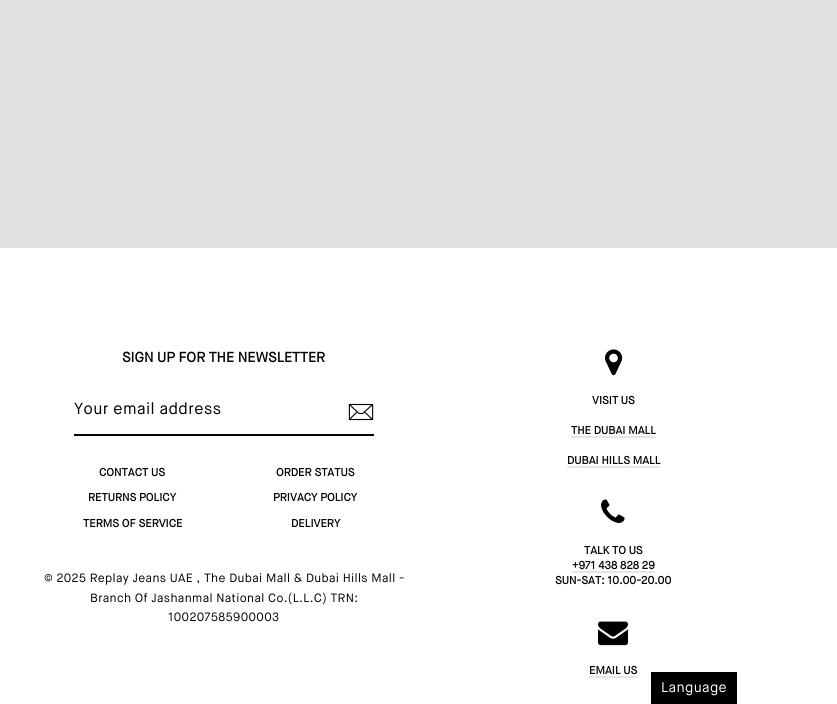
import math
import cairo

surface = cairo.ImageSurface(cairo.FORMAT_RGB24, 837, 704)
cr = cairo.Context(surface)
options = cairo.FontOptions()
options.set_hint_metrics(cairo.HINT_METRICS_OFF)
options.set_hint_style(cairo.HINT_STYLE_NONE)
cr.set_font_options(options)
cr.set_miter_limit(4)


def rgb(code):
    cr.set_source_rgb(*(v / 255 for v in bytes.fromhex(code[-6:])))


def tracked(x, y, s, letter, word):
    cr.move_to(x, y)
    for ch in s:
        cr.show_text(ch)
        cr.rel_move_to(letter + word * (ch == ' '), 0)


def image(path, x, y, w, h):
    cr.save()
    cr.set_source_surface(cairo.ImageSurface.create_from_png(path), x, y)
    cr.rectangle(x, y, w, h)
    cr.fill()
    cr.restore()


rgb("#e1e1e1")
cr.paint()
rgb("#ffffff")
cr.rectangle(0, 248, 837, 456)
cr.fill()
rgb("#000000")
cr.rectangle(74, 434, 300, 2)
cr.fill()
image("img/1.png", 348, 403, 26, 18)
image("img/2.png", 605, 349, 18, 27)
rgb("#e6e6e6")
cr.rectangle(571, 436, 85, 2)
cr.fill()
cr.rectangle(567, 466, 93, 2)
cr.fill()
image("img/3.png", 601, 499, 24, 24)
cr.rectangle(572, 571, 83, 2)
cr.fill()
image("img/4.png", 598, 621, 30, 25)
cr.rectangle(589, 676, 48, 2)
cr.fill()
rgb("#000000")
cr.rectangle(651, 672, 86, 32)
cr.fill()
cr.select_font_face("Maison Neue", cairo.FONT_SLANT_NORMAL, cairo.FONT_WEIGHT_BOLD)
cr.set_font_size(14)
cr.move_to(122, 362)
cr.show_text("SIGN UP FOR THE NEWSLETTER")
cr.select_font_face("Maison Neue")
cr.set_font_size(16)
tracked(74, 414, "Your email address", 0.4, 0)
cr.select_font_face("Maison Neue", cairo.FONT_SLANT_NORMAL, cairo.FONT_WEIGHT_BOLD)
cr.set_font_size(11)
for x, y, s in [
    (99, 476, "CONTACT US"),
    (276, 476, "ORDER STATUS"),
    (88, 501, "RETURNS POLICY"),
    (273, 501, "PRIVACY POLICY"),
    (83, 527, "TERMS OF SERVICE"),
    (291, 527, "DELIVERY"),
]:
    cr.move_to(x, y)
    cr.show_text(s)
cr.select_font_face("Maison Neue")
cr.set_font_size(12)
for x, y, s in [
    (44, 582, "© 2025 Replay Jeans UAE , The Dubai Mall & Dubai Hills Mall -"),
    (90, 602, "Branch Of Jashanmal National Co.(L.L.C) TRN:"),
    (168, 621, "100207585900003"),
]:
    tracked(x, y, s, 0.35, 0)
cr.select_font_face("Maison Neue", cairo.FONT_SLANT_NORMAL, cairo.FONT_WEIGHT_BOLD)
cr.set_font_size(11)
for x, y, s in [
    (592, 404, "VISIT US"),
    (571, 434, "THE DUBAI MALL"),
    (567, 464, "DUBAI HILLS MALL"),
    (584, 554, "TALK TO US"),
    (572, 569, "+971 438 828 29"),
    (555, 584, "SUN-SAT: 10.00-20.00"),
    (589, 674, "EMAIL US"),
]:
    cr.move_to(x, y)
    cr.show_text(s)
cr.select_font_face("Maison Neue")
cr.set_font_size(14)
rgb("#ffffff")
tracked(661, 692, "Language", 0.35, 0)
surface.write_to_png("page.png")
